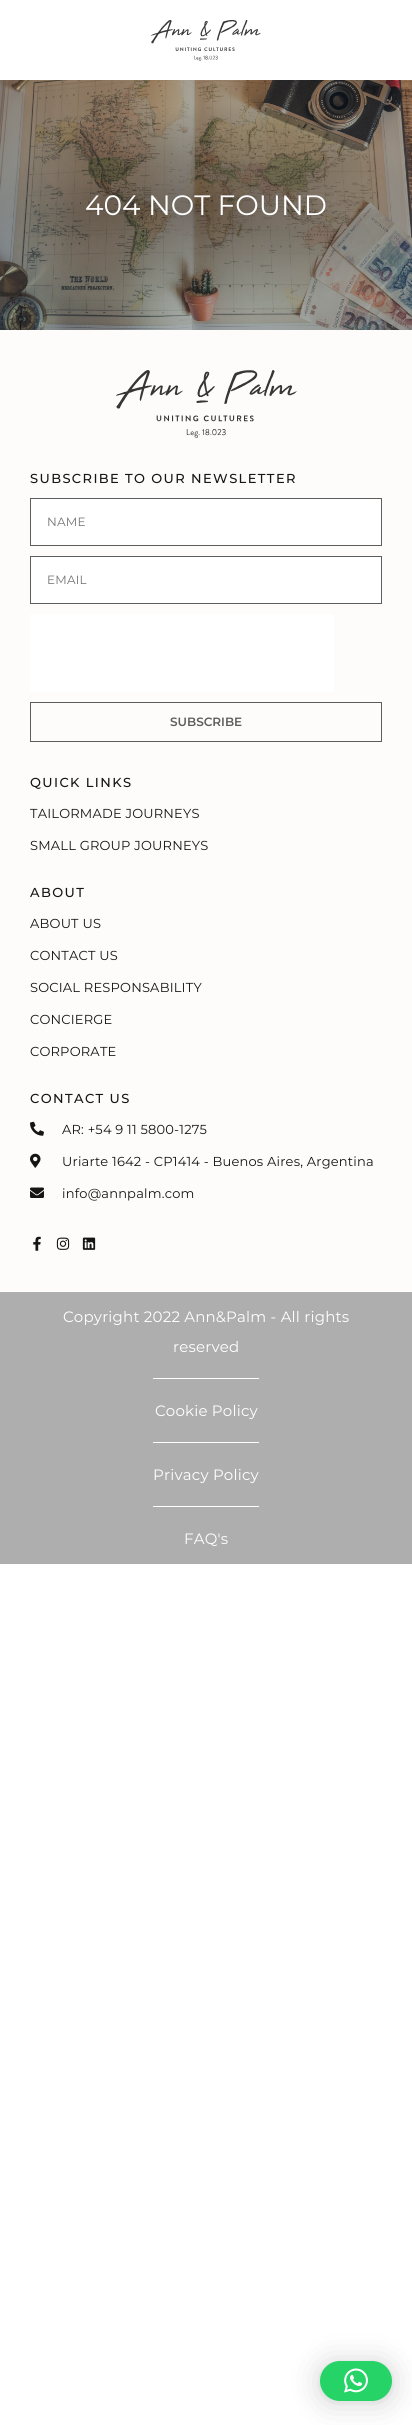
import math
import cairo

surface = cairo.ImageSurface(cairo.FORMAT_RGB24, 412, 2425)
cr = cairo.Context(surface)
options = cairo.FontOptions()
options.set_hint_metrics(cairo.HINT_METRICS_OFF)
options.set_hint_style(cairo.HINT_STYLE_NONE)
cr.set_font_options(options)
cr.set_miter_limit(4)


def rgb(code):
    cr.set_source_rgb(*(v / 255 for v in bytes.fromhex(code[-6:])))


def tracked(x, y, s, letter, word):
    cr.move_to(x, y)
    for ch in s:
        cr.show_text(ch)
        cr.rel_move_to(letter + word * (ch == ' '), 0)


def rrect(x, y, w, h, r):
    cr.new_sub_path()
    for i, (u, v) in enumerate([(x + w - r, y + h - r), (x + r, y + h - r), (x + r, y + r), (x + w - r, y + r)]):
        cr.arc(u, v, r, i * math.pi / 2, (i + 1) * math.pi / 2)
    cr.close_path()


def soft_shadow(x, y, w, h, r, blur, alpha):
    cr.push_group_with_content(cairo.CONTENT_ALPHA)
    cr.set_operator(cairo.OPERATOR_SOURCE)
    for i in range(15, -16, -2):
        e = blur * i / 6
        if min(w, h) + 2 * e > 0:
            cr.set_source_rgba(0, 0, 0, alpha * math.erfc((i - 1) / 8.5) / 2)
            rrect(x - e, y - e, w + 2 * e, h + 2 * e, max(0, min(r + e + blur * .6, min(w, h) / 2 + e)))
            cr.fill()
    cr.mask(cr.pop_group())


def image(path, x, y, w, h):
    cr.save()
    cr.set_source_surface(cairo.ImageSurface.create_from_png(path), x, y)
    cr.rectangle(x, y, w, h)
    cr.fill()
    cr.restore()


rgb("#ffffff")
cr.paint()
image("img/1.png", 151, 20, 110, 41)
image("img/2.png", 0, 80, 412, 250)
rgb("#fdfcfb")
cr.rectangle(0, 330, 412, 961)
cr.fill()
image("img/3.png", 116, 370, 181, 68)
rgb("#ffffff")
cr.rectangle(30.5, 498.5, 351, 47)
cr.fill_preserve()
rgb("#5d5d5d")
cr.set_line_width(1)
cr.stroke()
rgb("#ffffff")
cr.rectangle(30.5, 556.5, 351, 47)
cr.fill_preserve()
rgb("#5d5d5d")
cr.stroke()
rgb("#ffffff")
cr.rectangle(30, 614, 304, 78)
cr.fill()
cr.rectangle(30.5, 702.5, 351, 39)
rgb("#5d5d5d")
cr.stroke()
image("img/4.png", 30, 1121, 14, 15)
image("img/5.png", 30, 1153, 11, 15)
image("img/6.png", 30, 1187, 14, 11)
image("img/7.png", 33, 1236, 8, 15)
image("img/8.png", 56, 1237, 14, 13)
image("img/9.png", 82, 1237, 14, 13)
for x, y, w, h, color in [
    (0, 1292, 412, 272, "#aeaeae"),
    (153, 1378, 106, 1, "#ffffff"),
    (153, 1442, 106, 1, "#ffffff"),
    (153, 1506, 106, 1, "#ffffff"),
]:
    rgb(color)
    cr.rectangle(x, y, w, h)
    cr.fill()
rgb("#000000")
soft_shadow(320, 2363, 72, 40, 20, 16, 0.16)
soft_shadow(320, 2362, 72, 40, 20, 3, 0.06)
rgb("#25d366")
rrect(320, 2361, 72, 40, 20)
cr.fill()
image("img/10.png", 344, 2368, 24, 25)
cr.select_font_face("Montserrat")
cr.set_font_size(28)
rgb("#ffffff")
cr.move_to(85, 215)
cr.show_text("404 NOT FOUND")
cr.select_font_face("Montserrat Medium")
cr.set_font_size(13)
rgb("#151515")
tracked(30, 483, "SUBSCRIBE TO OUR NEWSLETTER", 1.4, 0)
cr.select_font_face("Montserrat")
cr.set_font_size(12)
rgb("#737373")
tracked(47, 526, "NAME", 0.2, 0)
tracked(47, 584, "EMAIL", 0.2, 0)
cr.select_font_face("Montserrat SemiBold")
rgb("#5d5d5d")
cr.move_to(170, 726)
cr.show_text("SUBSCRIBE")
cr.select_font_face("Montserrat Medium")
cr.set_font_size(13)
rgb("#151515")
tracked(30, 787, "QUICK LINKS", 1.4, 0)
cr.select_font_face("Montserrat")
tracked(30, 818, "TAILORMADE JOURNEYS", 0.2, 0)
tracked(30, 850, "SMALL GROUP JOURNEYS", 0.2, 0)
cr.select_font_face("Montserrat Medium")
tracked(30, 897, "ABOUT", 1.4, 0)
cr.select_font_face("Montserrat")
for x, y, s in [
    (30, 928, "ABOUT US"),
    (30, 960, "CONTACT US"),
    (30, 992, "SOCIAL RESPONSABILITY"),
    (30, 1024, "CONCIERGE"),
    (30, 1056, "CORPORATE"),
]:
    tracked(x, y, s, 0.2, 0)
cr.select_font_face("Montserrat Medium")
tracked(30, 1103, "CONTACT US", 1.4, 0)
cr.select_font_face("Montserrat")
for x, y, s in [
    (62, 1134, "AR: +54 9 11 5800-1275"),
    (62, 1166, "Uriarte 1642 - CP1414 - Buenos Aires, Argentina"),
    (62, 1198, "info@annpalm.com"),
]:
    tracked(x, y, s, 0.2, 0)
cr.set_font_size(15)
rgb("#ffffff")
for x, y, s in [
    (63, 1322, "Copyright 2022 Ann&Palm - All rights"),
    (173, 1352, "reserved"),
    (155, 1416, "Cookie Policy"),
    (153, 1480, "Privacy Policy"),
    (184, 1544, "FAQ's"),
]:
    tracked(x, y, s, 0.2, 0)
surface.write_to_png("page.png")
